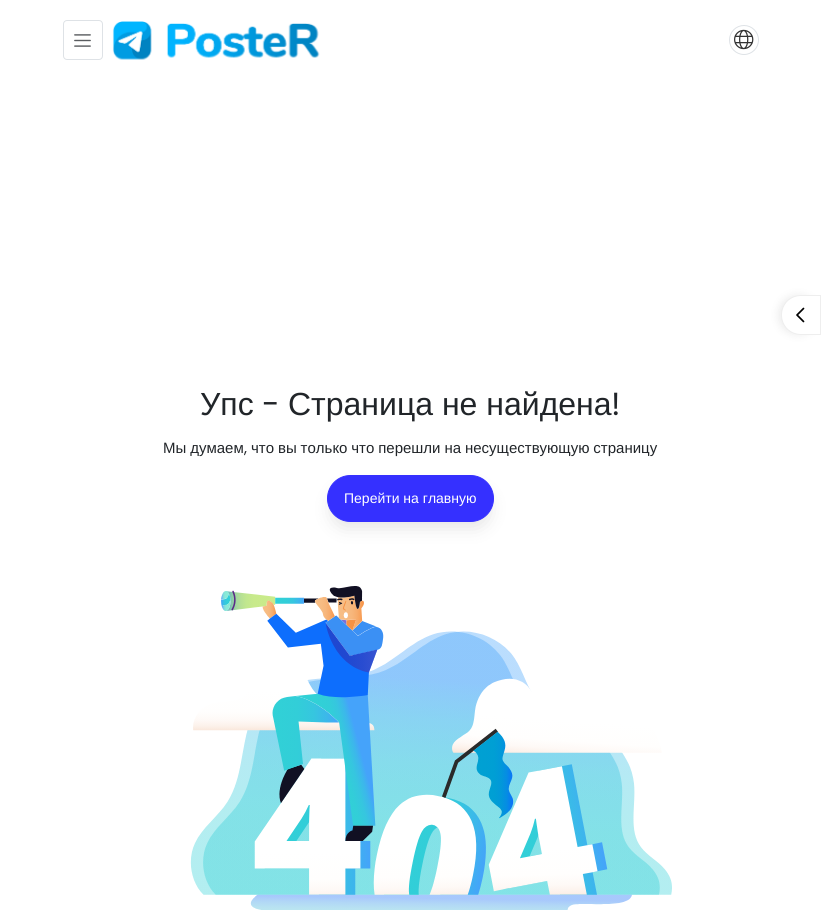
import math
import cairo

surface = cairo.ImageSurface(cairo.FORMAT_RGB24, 821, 910)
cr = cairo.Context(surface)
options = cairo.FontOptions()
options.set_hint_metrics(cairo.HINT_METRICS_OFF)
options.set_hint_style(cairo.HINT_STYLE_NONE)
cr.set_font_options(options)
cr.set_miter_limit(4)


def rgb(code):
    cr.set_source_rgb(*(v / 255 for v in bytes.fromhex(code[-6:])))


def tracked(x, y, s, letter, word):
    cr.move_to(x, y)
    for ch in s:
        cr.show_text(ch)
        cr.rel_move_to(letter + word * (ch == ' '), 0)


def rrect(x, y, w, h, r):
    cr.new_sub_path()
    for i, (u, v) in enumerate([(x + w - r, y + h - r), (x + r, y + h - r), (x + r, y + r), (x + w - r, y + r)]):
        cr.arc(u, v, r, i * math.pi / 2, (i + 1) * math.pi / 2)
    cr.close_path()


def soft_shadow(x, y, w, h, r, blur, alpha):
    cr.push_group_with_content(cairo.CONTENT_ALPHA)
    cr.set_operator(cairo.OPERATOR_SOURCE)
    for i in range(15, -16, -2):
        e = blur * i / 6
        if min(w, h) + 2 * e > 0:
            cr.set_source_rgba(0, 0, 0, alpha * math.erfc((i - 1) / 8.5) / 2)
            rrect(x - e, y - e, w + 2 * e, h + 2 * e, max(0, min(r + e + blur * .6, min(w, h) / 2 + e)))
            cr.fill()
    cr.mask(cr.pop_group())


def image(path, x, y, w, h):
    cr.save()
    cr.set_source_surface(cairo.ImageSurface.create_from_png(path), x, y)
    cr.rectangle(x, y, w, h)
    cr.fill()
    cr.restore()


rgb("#ffffff")
cr.paint()
rrect(63.5, 20.5, 39, 39, 3.5)
rgb("#dee2e6")
cr.set_line_width(1)
cr.stroke()
image("img/1.png", 74, 34, 17, 13)
image("img/2.png", 112, 21, 208, 39)
cr.arc(744, 40, 14.5, 0, 2 * math.pi)
cr.stroke()
image("img/3.png", 734, 29, 20, 21)
rgb("#000000")
soft_shadow(780, 297, 36, 36, 18, 5, 0.1)
rgb("#ffffff")
cr.new_path()
cr.move_to(801, 295.5)
cr.line_to(820.5, 295.5)
cr.line_to(820.5, 334.5)
cr.line_to(801, 334.5)
cr.curve_to(790, 334.5, 781.5, 326, 781.5, 315)
cr.curve_to(781.5, 304, 790, 295.5, 801, 295.5)
cr.close_path()
cr.fill_preserve()
rgb("#eeeeee")
cr.stroke()
cr.new_path()
cr.move_to(803.5, 308.5)
cr.line_to(797, 315)
cr.line_to(803.5, 321.5)
rgb("#000000")
cr.set_line_width(1.7)
cr.set_line_cap(cairo.LINE_CAP_ROUND)
cr.set_line_join(cairo.LINE_JOIN_ROUND)
cr.stroke()
rgb("#000000")
soft_shadow(333, 491, 155, 35, 17.5, 10, 0.12)
rgb("#3530ff")
rrect(327.5, 475.5, 166, 46, 23)
cr.fill_preserve()
cr.set_line_width(1)
cr.set_line_cap(cairo.LINE_CAP_BUTT)
cr.set_line_join(cairo.LINE_JOIN_MITER)
cr.stroke()
image("img/4.png", 190, 586, 482, 324)
cr.select_font_face("Liberation Sans")
cr.set_font_size(32)
rgb("#212529")
cr.move_to(200, 415)
cr.show_text("Упс")
cr.select_font_face("Poppins")
cr.move_to(262, 415)
cr.show_text("-")
cr.select_font_face("Liberation Sans")
cr.move_to(288, 415)
cr.show_text("Страница не найдена")
cr.select_font_face("Poppins")
cr.move_to(611, 415)
cr.show_text("!")
cr.select_font_face("Liberation Sans")
cr.set_font_size(15)
tracked(163, 453, "Мы думаем", 0, -0.25)
cr.select_font_face("Poppins")
cr.move_to(244, 453)
cr.show_text(",")
cr.select_font_face("Liberation Sans")
tracked(251, 453, "что вы только что перешли на несуществующую страницу", 0, -0.25)
cr.set_font_size(14)
rgb("#ffffff")
cr.move_to(344, 503)
cr.show_text("Перейти на главную")
surface.write_to_png("page.png")
